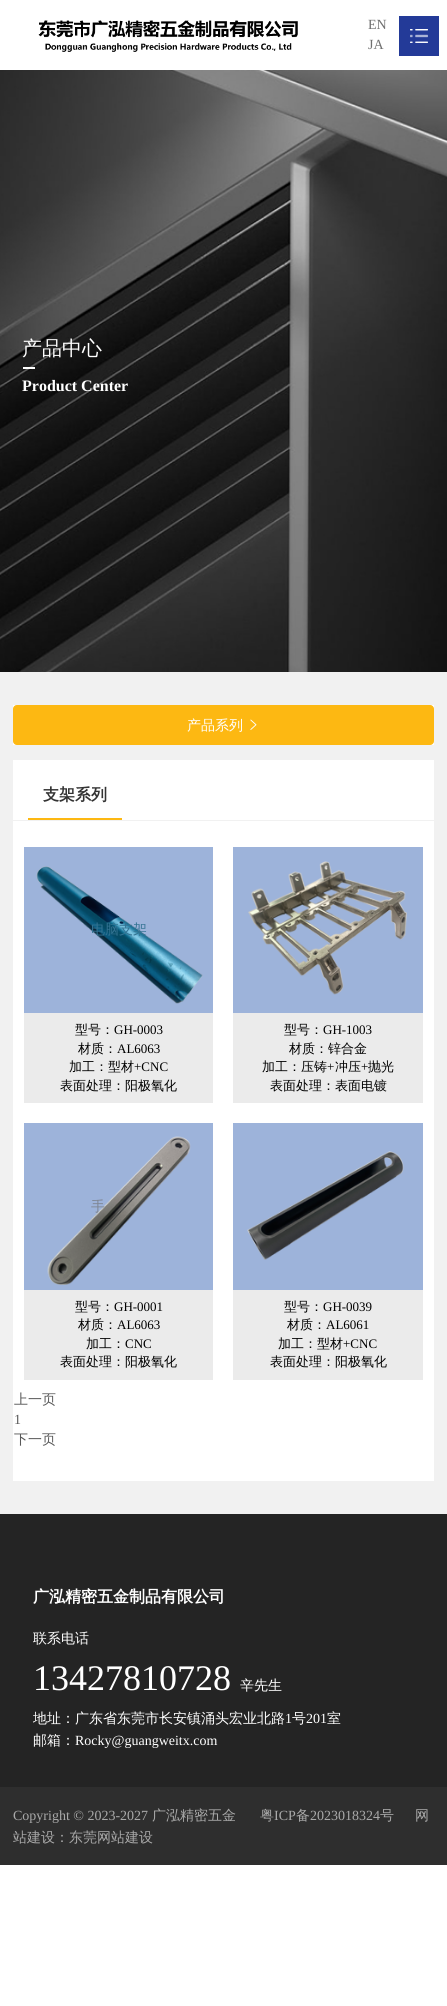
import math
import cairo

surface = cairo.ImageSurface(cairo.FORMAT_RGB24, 447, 2006)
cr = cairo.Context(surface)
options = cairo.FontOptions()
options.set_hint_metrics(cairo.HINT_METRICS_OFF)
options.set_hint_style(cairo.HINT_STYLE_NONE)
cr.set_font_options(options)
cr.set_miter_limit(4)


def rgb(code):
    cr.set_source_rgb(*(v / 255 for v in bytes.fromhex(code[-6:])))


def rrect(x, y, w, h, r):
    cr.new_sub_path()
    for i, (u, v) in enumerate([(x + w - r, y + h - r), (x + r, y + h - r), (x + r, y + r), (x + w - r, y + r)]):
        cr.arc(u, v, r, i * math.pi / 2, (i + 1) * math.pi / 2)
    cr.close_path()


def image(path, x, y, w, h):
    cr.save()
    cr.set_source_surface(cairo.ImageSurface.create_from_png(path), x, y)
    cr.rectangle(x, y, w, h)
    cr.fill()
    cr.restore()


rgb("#ffffff")
cr.paint()
image("img/1.png", 38, 20, 260, 32)
rgb("#233a98")
cr.rectangle(399, 16, 40, 40)
cr.fill()
image("img/2.png", 410, 29, 18, 14)
image("img/3.png", 0, 70, 447, 602)
for x, y, w, h, color in [
    (23, 367, 12, 2, "#ffffff"),
    (0, 672, 447, 842, "#f1f1f1"),
    (13, 705, 421, 40, "#ffffff"),
]:
    rgb(color)
    cr.rectangle(x, y, w, h)
    cr.fill()
rgb("#fdb812")
rrect(13.5, 705.5, 420, 39, 3.5)
cr.fill_preserve()
cr.set_line_width(1)
cr.stroke()
image("img/4.png", 250, 719, 7, 11)
for x, y, w, h, color in [
    (13, 760, 421, 60, "#ffffff"),
    (28, 818, 94, 2, "#fdb812"),
    (13, 821, 421, 660, "#ffffff"),
    (24, 847, 189, 166, "#9db3da"),
]:
    rgb(color)
    cr.rectangle(x, y, w, h)
    cr.fill()
image("img/5.png", 36, 866, 167, 138)
rgb("#ebebeb")
cr.rectangle(24, 1013, 189, 90)
cr.fill()
rgb("#9db3da")
cr.rectangle(233, 847, 190, 166)
cr.fill()
image("img/6.png", 248, 861, 159, 134)
rgb("#ebebeb")
cr.rectangle(233, 1013, 190, 90)
cr.fill()
rgb("#9db3da")
cr.rectangle(24, 1123, 189, 167)
cr.fill()
image("img/7.png", 47, 1136, 144, 149)
rgb("#ebebeb")
cr.rectangle(24, 1290, 189, 90)
cr.fill()
rgb("#9db3da")
cr.rectangle(233, 1123, 190, 167)
cr.fill()
image("img/8.png", 247, 1151, 157, 109)
for x, y, w, h, color in [
    (233, 1290, 190, 90, "#ebebeb"),
    (0, 1514, 447, 273, "#242424"),
    (0, 1787, 447, 78, "#2e2e2e"),
]:
    rgb(color)
    cr.rectangle(x, y, w, h)
    cr.fill()
cr.select_font_face("Liberation Serif")
cr.set_font_size(14)
rgb("#707070")
cr.move_to(368, 29)
cr.show_text("EN")
cr.move_to(368, 49)
cr.show_text("JA")
cr.select_font_face("WenQuanYi Zen Hei Medium")
cr.set_font_size(20)
rgb("#ffffff")
cr.move_to(22, 355)
cr.show_text("产品中心")
cr.select_font_face("Liberation Serif", cairo.FONT_SLANT_NORMAL, cairo.FONT_WEIGHT_BOLD)
cr.set_font_size(16)
cr.move_to(22, 391)
cr.show_text("Product Center")
cr.select_font_face("WenQuanYi Zen Hei Medium")
cr.set_font_size(14)
cr.move_to(187, 730)
cr.show_text("产品系列")
cr.select_font_face("WenQuanYi Zen Hei", cairo.FONT_SLANT_NORMAL, cairo.FONT_WEIGHT_BOLD)
cr.set_font_size(16)
rgb("#333333")
cr.move_to(43, 800)
cr.show_text("支架系列")
cr.select_font_face("WenQuanYi Zen Hei Medium")
cr.set_font_size(14)
rgb("#337392")
cr.move_to(91, 934)
cr.show_text("电脑支架")
cr.set_font_size(13)
rgb("#000000")
cr.move_to(75, 1034)
cr.show_text("型号：")
cr.select_font_face("Liberation Serif")
cr.move_to(114, 1034)
cr.show_text("GH-0003")
cr.select_font_face("WenQuanYi Zen Hei Medium")
cr.move_to(78, 1053)
cr.show_text("材质：")
cr.select_font_face("Liberation Serif")
cr.move_to(117, 1053)
cr.show_text("AL6063")
cr.select_font_face("WenQuanYi Zen Hei Medium")
cr.move_to(69, 1071)
cr.show_text("加工：型材")
cr.select_font_face("Liberation Serif")
cr.move_to(134, 1071)
cr.show_text("+CNC")
cr.select_font_face("WenQuanYi Zen Hei Medium")
cr.move_to(60, 1090)
cr.show_text("表面处理：阳极氧化")
cr.move_to(284, 1034)
cr.show_text("型号：")
cr.select_font_face("Liberation Serif")
cr.move_to(323, 1034)
cr.show_text("GH-1003")
cr.select_font_face("WenQuanYi Zen Hei Medium")
cr.move_to(289, 1053)
cr.show_text("材质：锌合金")
cr.move_to(262, 1071)
cr.show_text("加工：压铸")
cr.select_font_face("Liberation Serif")
cr.move_to(327, 1071)
cr.show_text("+")
cr.select_font_face("WenQuanYi Zen Hei Medium")
cr.move_to(335, 1071)
cr.show_text("冲压")
cr.select_font_face("Liberation Serif")
cr.move_to(361, 1071)
cr.show_text("+")
cr.select_font_face("WenQuanYi Zen Hei Medium")
cr.move_to(368, 1071)
cr.show_text("抛光")
cr.move_to(270, 1090)
cr.show_text("表面处理：表面电镀")
cr.set_font_size(14)
rgb("#7e8591")
cr.move_to(91, 1211)
cr.show_text("手")
cr.set_font_size(13)
rgb("#000000")
cr.move_to(75, 1311)
cr.show_text("型号：")
cr.select_font_face("Liberation Serif")
cr.move_to(114, 1311)
cr.show_text("GH-0001")
cr.select_font_face("WenQuanYi Zen Hei Medium")
cr.move_to(78, 1329)
cr.show_text("材质：")
cr.select_font_face("Liberation Serif")
cr.move_to(117, 1329)
cr.show_text("AL6063")
cr.select_font_face("WenQuanYi Zen Hei Medium")
cr.move_to(86, 1348)
cr.show_text("加工：")
cr.select_font_face("Liberation Serif")
cr.move_to(125, 1348)
cr.show_text("CNC")
cr.select_font_face("WenQuanYi Zen Hei Medium")
cr.move_to(60, 1366)
cr.show_text("表面处理：阳极氧化")
cr.move_to(284, 1311)
cr.show_text("型号：")
cr.select_font_face("Liberation Serif")
cr.move_to(323, 1311)
cr.show_text("GH-0039")
cr.select_font_face("WenQuanYi Zen Hei Medium")
cr.move_to(287, 1329)
cr.show_text("材质：")
cr.select_font_face("Liberation Serif")
cr.move_to(326, 1329)
cr.show_text("AL6061")
cr.select_font_face("WenQuanYi Zen Hei Medium")
cr.move_to(278, 1348)
cr.show_text("加工：型材")
cr.select_font_face("Liberation Serif")
cr.move_to(343, 1348)
cr.show_text("+CNC")
cr.select_font_face("WenQuanYi Zen Hei Medium")
cr.move_to(270, 1366)
cr.show_text("表面处理：阳极氧化")
cr.set_font_size(14)
rgb("#595959")
cr.move_to(14, 1404)
cr.show_text("上一页")
cr.select_font_face("Liberation Serif")
cr.move_to(14, 1424)
cr.show_text("1")
cr.select_font_face("WenQuanYi Zen Hei Medium")
cr.move_to(14, 1444)
cr.show_text("下一页")
cr.select_font_face("WenQuanYi Zen Hei", cairo.FONT_SLANT_NORMAL, cairo.FONT_WEIGHT_BOLD)
cr.set_font_size(16)
rgb("#ffffff")
cr.move_to(33, 1602)
cr.show_text("广泓精密五金制品有限公司")
cr.select_font_face("WenQuanYi Zen Hei Medium")
cr.set_font_size(14)
cr.move_to(33, 1643)
cr.show_text("联系电话")
cr.select_font_face("Liberation Serif")
cr.set_font_size(36)
cr.move_to(33, 1690)
cr.show_text("13427810728")
cr.select_font_face("WenQuanYi Zen Hei Medium")
cr.set_font_size(14)
cr.move_to(240, 1690)
cr.show_text("辛先生")
cr.move_to(33, 1723)
cr.show_text("地址：广东省东莞市长安镇涌头宏业北路")
cr.select_font_face("Liberation Serif")
cr.move_to(285, 1723)
cr.show_text("1")
cr.select_font_face("WenQuanYi Zen Hei Medium")
cr.move_to(292, 1723)
cr.show_text("号")
cr.select_font_face("Liberation Serif")
cr.move_to(306, 1723)
cr.show_text("201")
cr.select_font_face("WenQuanYi Zen Hei Medium")
cr.move_to(327, 1723)
cr.show_text("室")
cr.move_to(33, 1745)
cr.show_text("邮箱：")
cr.select_font_face("Liberation Serif")
cr.move_to(75, 1745)
cr.show_text("Rocky@guangweitx.com")
rgb("#a9a9a9")
cr.move_to(13, 1820)
cr.show_text("Copyright © 2023-2027")
cr.select_font_face("WenQuanYi Zen Hei Medium")
cr.move_to(152, 1820)
cr.show_text("广泓精密五金")
cr.move_to(260, 1820)
cr.show_text("粤")
cr.select_font_face("Liberation Serif")
cr.move_to(274, 1820)
cr.show_text("ICP")
cr.select_font_face("WenQuanYi Zen Hei Medium")
cr.move_to(296, 1820)
cr.show_text("备")
cr.select_font_face("Liberation Serif")
cr.move_to(310, 1820)
cr.show_text("2023018324")
cr.select_font_face("WenQuanYi Zen Hei Medium")
for x, y, s in [
    (380, 1820, "号"),
    (415, 1820, "网"),
    (13, 1842, "站建设：东莞网站建设"),
]:
    cr.move_to(x, y)
    cr.show_text(s)
surface.write_to_png("page.png")
